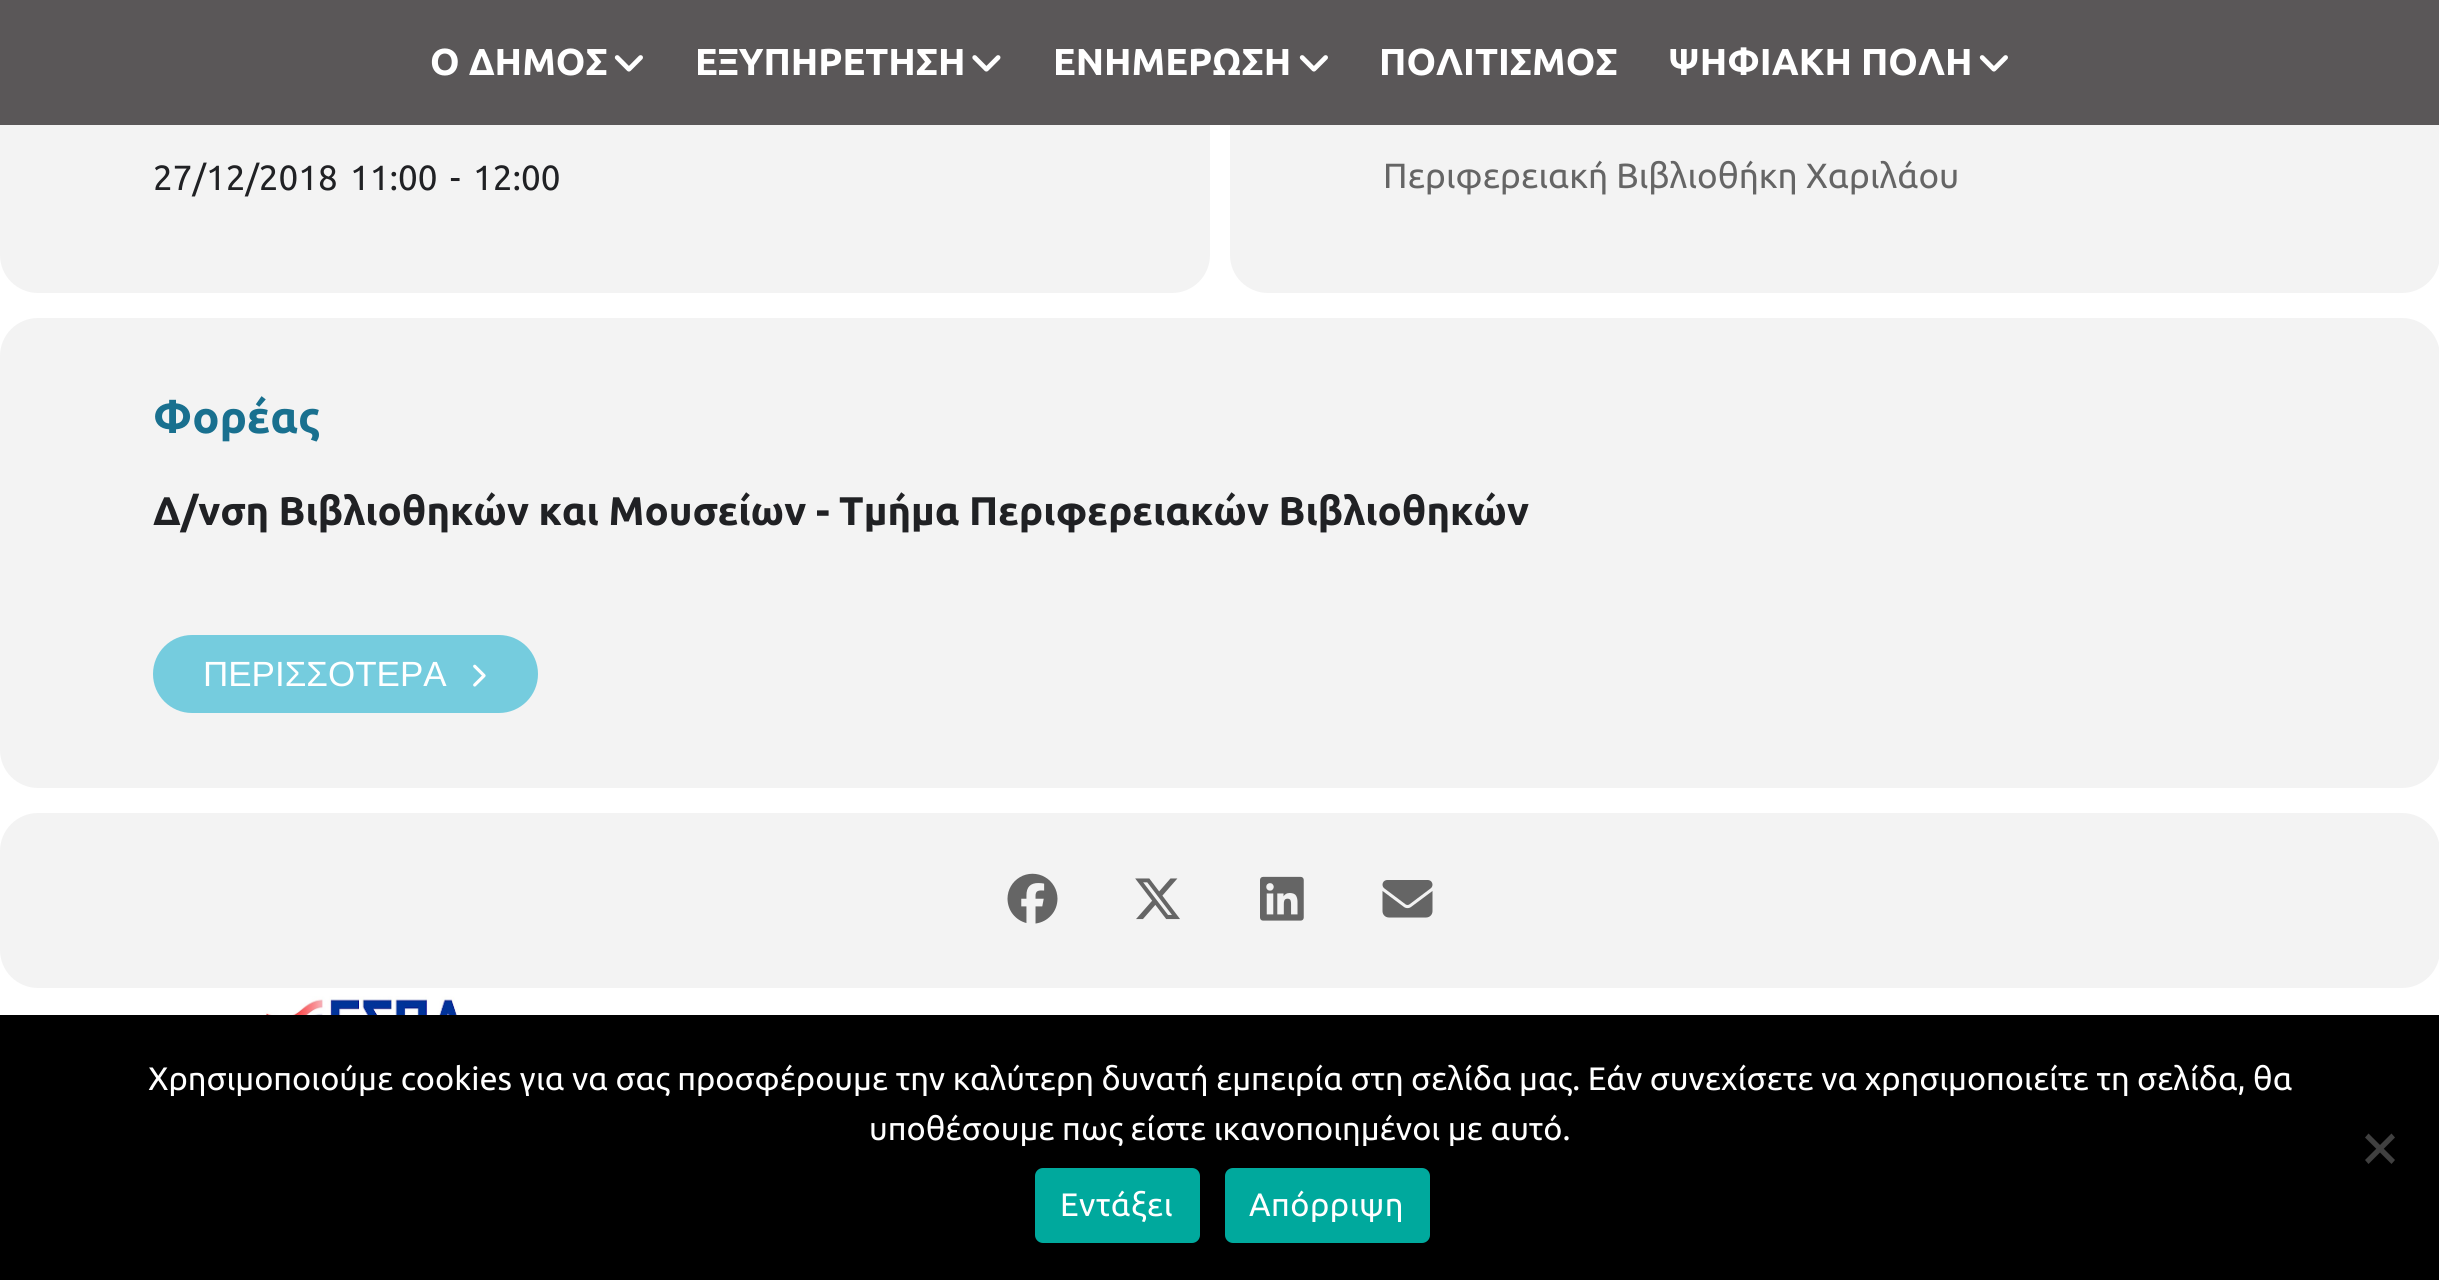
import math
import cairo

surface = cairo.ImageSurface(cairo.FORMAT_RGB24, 2439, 1280)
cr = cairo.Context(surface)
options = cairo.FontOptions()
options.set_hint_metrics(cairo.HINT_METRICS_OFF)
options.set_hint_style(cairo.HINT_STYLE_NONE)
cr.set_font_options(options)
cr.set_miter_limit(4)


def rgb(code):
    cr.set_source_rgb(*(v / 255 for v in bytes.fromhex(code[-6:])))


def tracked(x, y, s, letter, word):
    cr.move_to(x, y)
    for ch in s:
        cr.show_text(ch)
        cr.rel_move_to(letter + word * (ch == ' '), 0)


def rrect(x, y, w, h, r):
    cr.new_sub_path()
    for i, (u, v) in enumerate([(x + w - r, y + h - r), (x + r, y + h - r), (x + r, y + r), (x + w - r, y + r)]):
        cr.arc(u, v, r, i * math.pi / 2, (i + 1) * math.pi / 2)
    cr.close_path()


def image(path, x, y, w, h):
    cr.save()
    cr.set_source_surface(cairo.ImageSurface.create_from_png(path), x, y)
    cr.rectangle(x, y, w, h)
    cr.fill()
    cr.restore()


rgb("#ffffff")
cr.paint()
rgb("#f3f3f3")
rrect(0, -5, 1210, 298, 38)
cr.fill()
rrect(1230, -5, 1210, 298, 38)
cr.fill()
rgb("#5a5758")
cr.rectangle(0, 0, 2439, 125)
cr.fill()
image("img/1.png", 614, 55, 29, 17)
image("img/2.png", 972, 55, 29, 17)
image("img/1.png", 1299, 55, 29, 17)
image("img/1.png", 1979, 55, 29, 17)
rgb("#f3f3f3")
rrect(0, 318, 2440, 470, 38)
cr.fill()
rgb("#75ccde")
rrect(153, 635, 385, 78, 39)
cr.fill()
image("img/3.png", 473, 664, 13, 23)
rgb("#f3f3f3")
rrect(0, 813, 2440, 175, 38)
cr.fill()
image("img/4.png", 1007, 873, 51, 51)
image("img/5.png", 1135, 878, 45, 42)
image("img/6.png", 1260, 876, 44, 45)
image("img/7.png", 1382, 880, 51, 38)
image("img/8.png", 263, 996, 207, 19)
rgb("#000000")
cr.rectangle(0, 1015, 2439, 265)
cr.fill()
rgb("#404040")
cr.new_path()
cr.move_to(2391.5, 1133.5)
cr.line_to(2395, 1137.5)
cr.line_to(2368.5, 1164)
cr.line_to(2365, 1160)
cr.close_path()
cr.fill()
cr.new_path()
cr.move_to(2365, 1137.5)
cr.line_to(2368.5, 1133.5)
cr.line_to(2395, 1160)
cr.line_to(2391.5, 1164)
cr.close_path()
cr.fill()
rgb("#00a99d")
rrect(1035, 1168, 165, 75, 8)
cr.fill()
rrect(1225, 1168, 205, 75, 8)
cr.fill()
cr.select_font_face("Ubuntu", cairo.FONT_SLANT_NORMAL, cairo.FONT_WEIGHT_BOLD)
cr.set_font_size(37.5)
rgb("#ffffff")
for x, y, s in [
    (430, 75, "Ο ΔΗΜΟΣ"),
    (695, 75, "ΕΞΥΠΗΡΕΤΗΣΗ"),
    (1053, 75, "ΕΝΗΜΕΡΩΣΗ"),
    (1379, 75, "ΠΟΛΙΤΙΣΜΟΣ"),
    (1668, 75, "ΨΗΦΙΑΚΗ ΠΟΛΗ"),
]:
    cr.move_to(x, y)
    cr.show_text(s)
cr.select_font_face("Ubuntu")
cr.set_font_size(35)
rgb("#202124")
for x, y, s in [
    (153, 190, "27/12/2018"),
    (350, 190, "11:00"),
    (450, 190, "-"),
    (473, 190, "12:00"),
]:
    cr.move_to(x, y)
    cr.show_text(s)
rgb("#656565")
cr.move_to(1383, 188)
cr.show_text("Περιφερειακή Βιβλιοθήκη Χαριλάου")
cr.select_font_face("Ubuntu", cairo.FONT_SLANT_NORMAL, cairo.FONT_WEIGHT_BOLD)
cr.set_font_size(45)
rgb("#19708f")
cr.move_to(153, 433)
cr.show_text("Φορέας")
cr.set_font_size(40)
rgb("#202124")
cr.move_to(153, 525)
cr.show_text("Δ/νση Βιβλιοθηκών και Μουσείων - Τμήμα Περιφερειακών Βιβλιοθηκών")
cr.select_font_face("Liberation Sans")
cr.set_font_size(35)
rgb("#ffffff")
cr.move_to(203, 686)
cr.show_text("ΠΕΡΙΣΣΟΤΕΡΑ")
cr.select_font_face("Ubuntu")
cr.set_font_size(32.5)
cr.move_to(148, 1090)
cr.show_text("Χρησιμοποιούμε cookies για να σας προσφέρουμε την καλύτερη δυνατή εμπειρία στη σελίδα μας. Εάν συνεχίσετε να χρησιμοποιείτε τη σελίδα, θα")
cr.move_to(869, 1140)
cr.show_text("υποθέσουμε πως είστε ικανοποιημένοι με αυτό.")
tracked(1060, 1216, "Εντάξει", 0.5, 0)
tracked(1249, 1216, "Απόρριψη", 0.5, 0)
surface.write_to_png("page.png")
